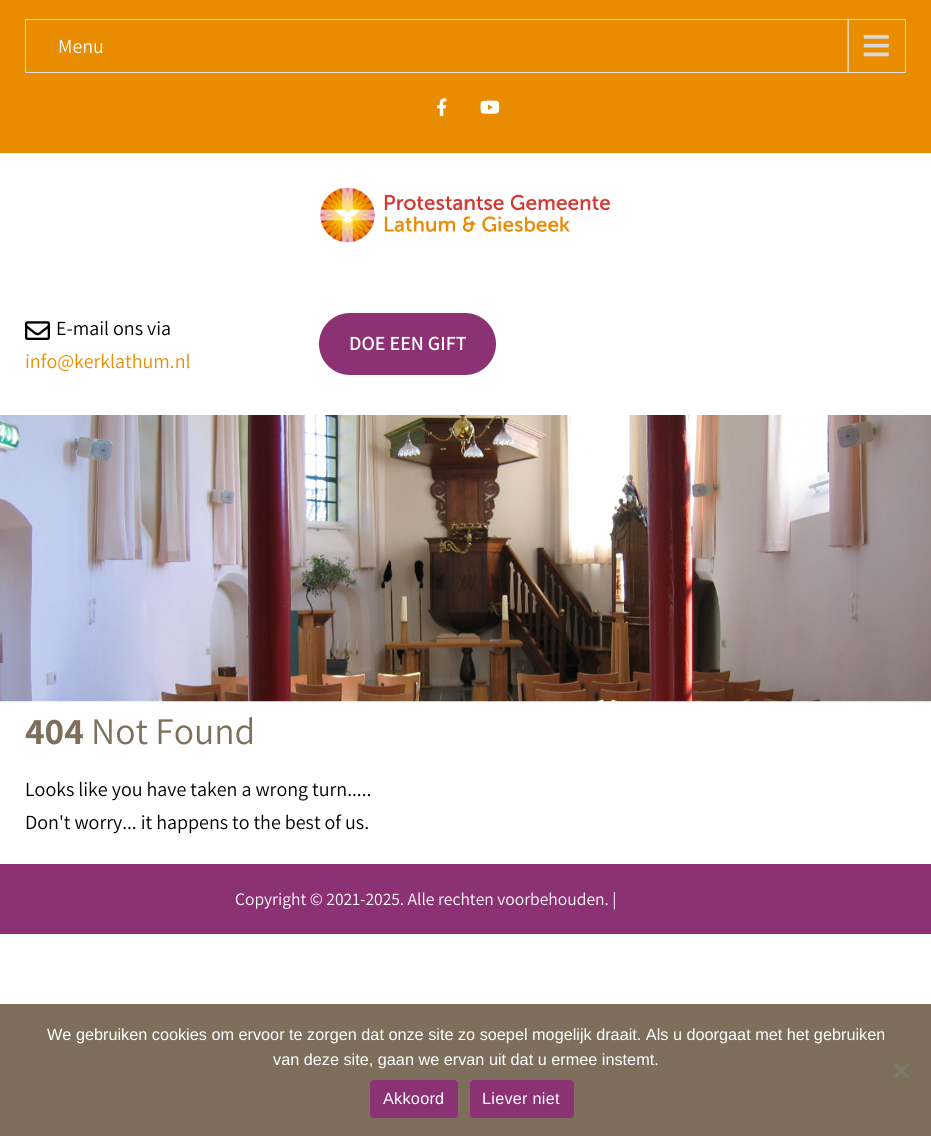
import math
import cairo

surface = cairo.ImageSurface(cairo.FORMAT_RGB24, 931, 1136)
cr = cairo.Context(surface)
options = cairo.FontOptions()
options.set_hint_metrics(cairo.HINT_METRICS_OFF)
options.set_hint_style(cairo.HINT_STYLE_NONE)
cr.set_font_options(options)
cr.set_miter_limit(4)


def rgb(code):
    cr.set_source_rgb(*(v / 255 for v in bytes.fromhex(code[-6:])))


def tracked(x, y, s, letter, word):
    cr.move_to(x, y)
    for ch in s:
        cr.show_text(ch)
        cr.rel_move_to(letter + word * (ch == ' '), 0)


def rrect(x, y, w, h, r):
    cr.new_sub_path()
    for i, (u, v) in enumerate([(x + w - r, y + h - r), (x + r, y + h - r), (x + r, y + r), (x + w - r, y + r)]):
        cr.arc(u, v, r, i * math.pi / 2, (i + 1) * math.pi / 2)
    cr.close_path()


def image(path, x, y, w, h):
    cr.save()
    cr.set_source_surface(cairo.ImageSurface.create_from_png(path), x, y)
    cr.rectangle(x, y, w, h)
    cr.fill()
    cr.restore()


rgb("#ffffff")
cr.paint()
rgb("#e98c00")
cr.rectangle(0, 0, 931, 153)
cr.fill()
image("img/1.png", 847, 18, 42, 54)
cr.rectangle(25.5, 19.5, 880, 53)
rgb("#dddddd")
cr.set_line_width(1)
cr.stroke()
image("img/2.png", 437, 98, 10, 18)
image("img/3.png", 480, 100, 20, 14)
image("img/4.png", 320, 187, 291, 56)
image("img/5.png", 25, 321, 25, 19)
rgb("#8d3175")
rrect(319, 313, 177, 62, 31)
cr.fill()
image("img/6.png", 0, 415, 931, 287)
cr.rectangle(0, 864, 931, 70)
cr.fill()
rgb("#7e6f5d")
cr.rectangle(0, 1004, 931, 132)
cr.fill()
rgb("#7f786f")
cr.new_path()
cr.move_to(907, 1063)
cr.line_to(909, 1065)
cr.line_to(895.5, 1078)
cr.line_to(893.5, 1076.5)
cr.close_path()
cr.fill()
cr.new_path()
cr.move_to(893.5, 1065)
cr.line_to(895.5, 1063)
cr.line_to(909, 1076.5)
cr.line_to(907, 1078)
cr.close_path()
cr.fill()
rgb("#8d3175")
rrect(370, 1080, 88, 38, 4)
cr.fill()
rrect(470, 1080, 104, 38, 4)
cr.fill()
cr.select_font_face("Assistant ExtraLight")
cr.set_font_size(20)
rgb("#ffffff")
cr.move_to(58, 53)
cr.show_text("Menu")
rgb("#000000")
cr.move_to(56, 335)
cr.show_text("E-mail ons via")
rgb("#e98c00")
cr.move_to(25, 368)
cr.show_text("info@kerklathum.nl")
cr.select_font_face("Assistant SemiBold")
rgb("#ffffff")
cr.move_to(349, 350)
cr.show_text("DOE EEN GIFT")
cr.select_font_face("Assistant", cairo.FONT_SLANT_NORMAL, cairo.FONT_WEIGHT_BOLD)
cr.set_font_size(37.5)
rgb("#7e6f5d")
cr.move_to(25, 744)
cr.show_text("404")
cr.select_font_face("Assistant ExtraLight")
cr.move_to(91, 744)
cr.show_text("Not Found")
cr.set_font_size(20)
rgb("#000000")
cr.move_to(25, 796)
cr.show_text("Looks like you have taken a wrong turn.....")
cr.move_to(25, 829)
cr.show_text("Don't worry... it happens to the best of us.")
cr.set_font_size(17.5)
rgb("#ffffff")
cr.move_to(235, 905)
cr.show_text("Copyright © 2021-2025. Alle rechten voorbehouden. |")
cr.select_font_face("Liberation Sans")
cr.set_font_size(16.25)
cr.move_to(47, 1040)
cr.show_text("We gebruiken cookies om ervoor te zorgen dat onze site zo soepel mogelijk draait. Als u doorgaat met het gebruiken")
cr.move_to(273, 1065)
cr.show_text("van deze site, gaan we ervan uit dat u ermee instemt.")
tracked(383, 1104, "Akkoord", 0.25, 0)
tracked(482, 1104, "Liever niet", 0.25, 0)
surface.write_to_png("page.png")
